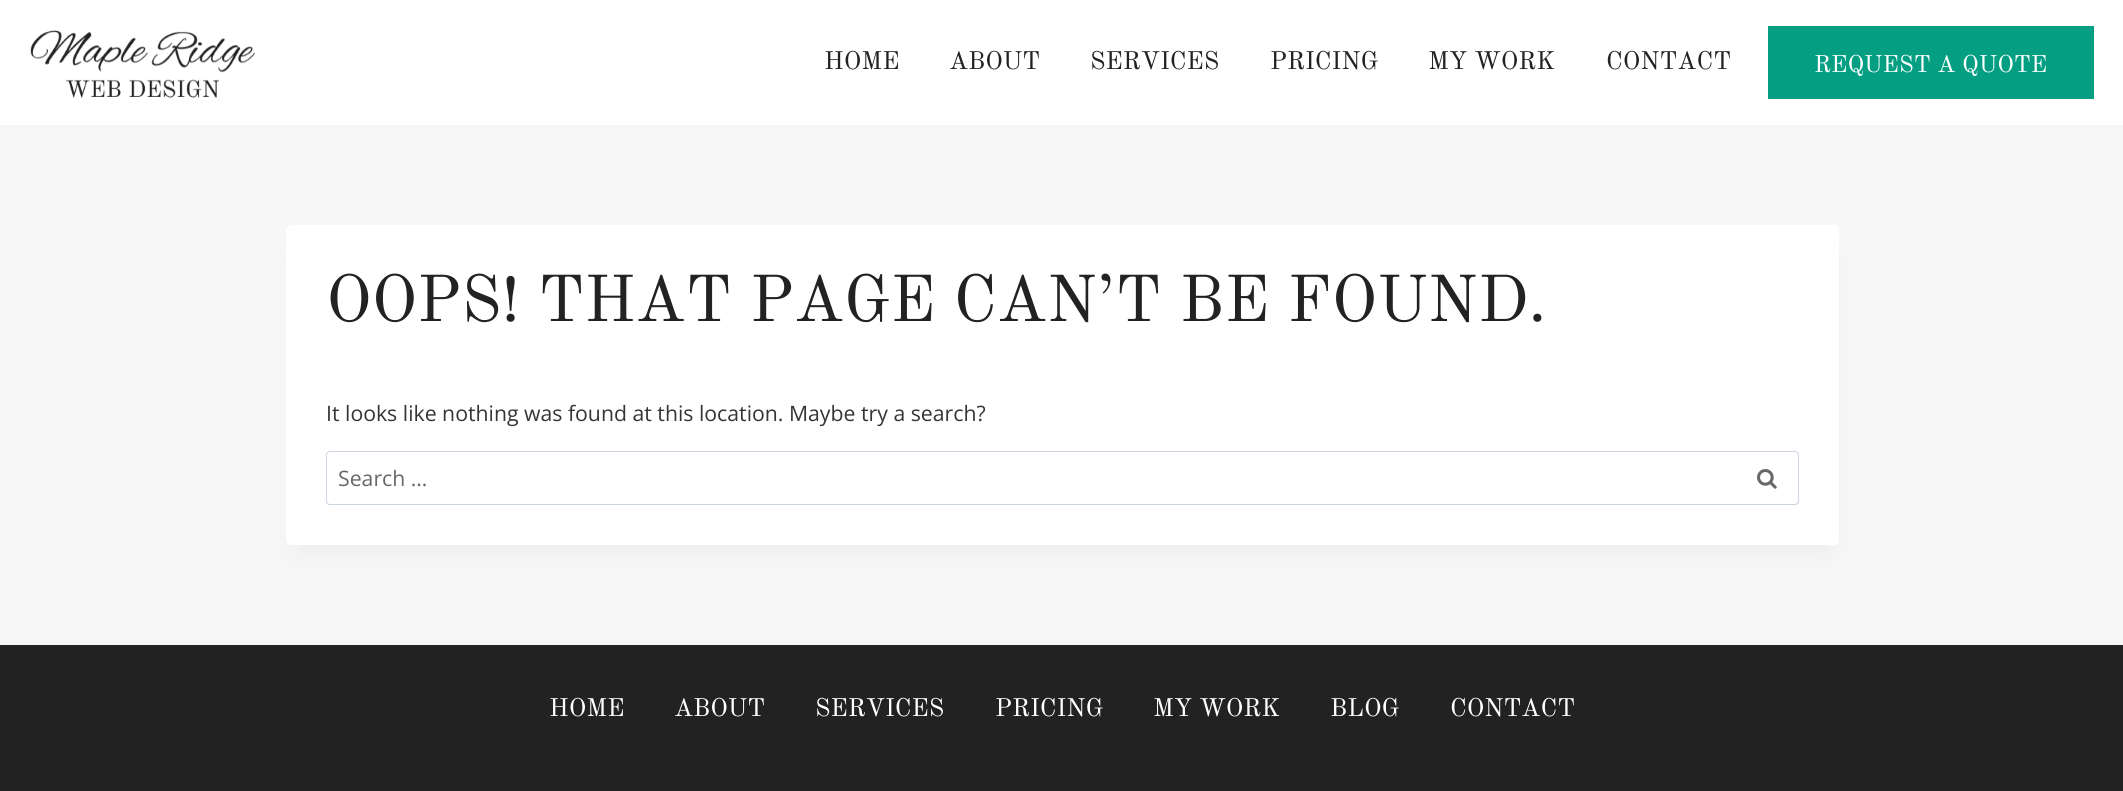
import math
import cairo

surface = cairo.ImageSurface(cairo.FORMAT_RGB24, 2123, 791)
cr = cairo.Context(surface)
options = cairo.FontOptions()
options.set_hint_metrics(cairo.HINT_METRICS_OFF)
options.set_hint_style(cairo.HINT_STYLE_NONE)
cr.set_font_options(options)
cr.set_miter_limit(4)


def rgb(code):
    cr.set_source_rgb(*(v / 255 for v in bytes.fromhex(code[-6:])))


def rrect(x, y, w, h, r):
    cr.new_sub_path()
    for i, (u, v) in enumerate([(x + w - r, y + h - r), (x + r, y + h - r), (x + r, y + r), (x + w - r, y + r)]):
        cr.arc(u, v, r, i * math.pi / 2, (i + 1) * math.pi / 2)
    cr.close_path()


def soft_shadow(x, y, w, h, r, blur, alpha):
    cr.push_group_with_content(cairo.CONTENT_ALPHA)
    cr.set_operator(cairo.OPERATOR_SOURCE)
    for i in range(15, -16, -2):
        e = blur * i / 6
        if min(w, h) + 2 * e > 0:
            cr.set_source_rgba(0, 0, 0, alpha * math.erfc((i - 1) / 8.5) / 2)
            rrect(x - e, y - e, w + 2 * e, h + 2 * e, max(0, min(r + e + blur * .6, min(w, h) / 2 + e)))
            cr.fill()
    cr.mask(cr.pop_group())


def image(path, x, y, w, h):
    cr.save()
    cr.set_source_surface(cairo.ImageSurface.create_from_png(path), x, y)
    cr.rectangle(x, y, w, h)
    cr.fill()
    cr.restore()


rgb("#f7f7f7")
cr.paint()
rgb("#ffffff")
cr.rectangle(0, 0, 2123, 125)
cr.fill()
image("img/1.png", 30, 30, 225, 68)
rgb("#049f82")
cr.rectangle(1768, 26, 326, 73)
cr.fill()
rgb("#000000")
soft_shadow(299, 256, 1527, 295, 0, 15.5, 0.05)
rgb("#ffffff")
rrect(286, 225, 1553, 320, 5)
cr.fill()
rrect(326.5, 451.5, 1472, 53, 3.5)
rgb("#cbd5e0")
cr.set_line_width(1)
cr.stroke()
image("img/2.png", 1757, 469, 20, 20)
rgb("#222222")
cr.rectangle(0, 645, 2123, 146)
cr.fill()
cr.select_font_face("Old Standard TT")
cr.set_font_size(25)
for x, y, s in [
    (824, 69, "HOME"),
    (949, 69, "ABOUT"),
    (1090, 69, "SERVICES"),
    (1270, 69, "PRICING"),
    (1428, 69, "MY WORK"),
    (1606, 69, "CONTACT"),
]:
    cr.move_to(x, y)
    cr.show_text(s)
cr.set_font_size(23.75)
rgb("#ffffff")
cr.move_to(1814, 72)
cr.show_text("REQUEST A QUOTE")
cr.set_font_size(65)
rgb("#222222")
cr.move_to(326, 321)
cr.show_text("OOPS! THAT PAGE CAN’T BE FOUND.")
cr.select_font_face("Open Sans")
cr.set_font_size(21.25)
rgb("#353535")
cr.move_to(326, 421)
cr.show_text("It looks like nothing was found at this location. Maybe try a search?")
rgb("#676767")
cr.move_to(338, 486)
cr.show_text("Search …")
cr.select_font_face("Old Standard TT")
cr.set_font_size(25)
rgb("#ffffff")
for x, y, s in [
    (549, 716, "HOME"),
    (674, 716, "ABOUT"),
    (815, 716, "SERVICES"),
    (995, 716, "PRICING"),
    (1153, 716, "MY WORK"),
    (1330, 716, "BLOG"),
    (1450, 716, "CONTACT"),
]:
    cr.move_to(x, y)
    cr.show_text(s)
surface.write_to_png("page.png")
